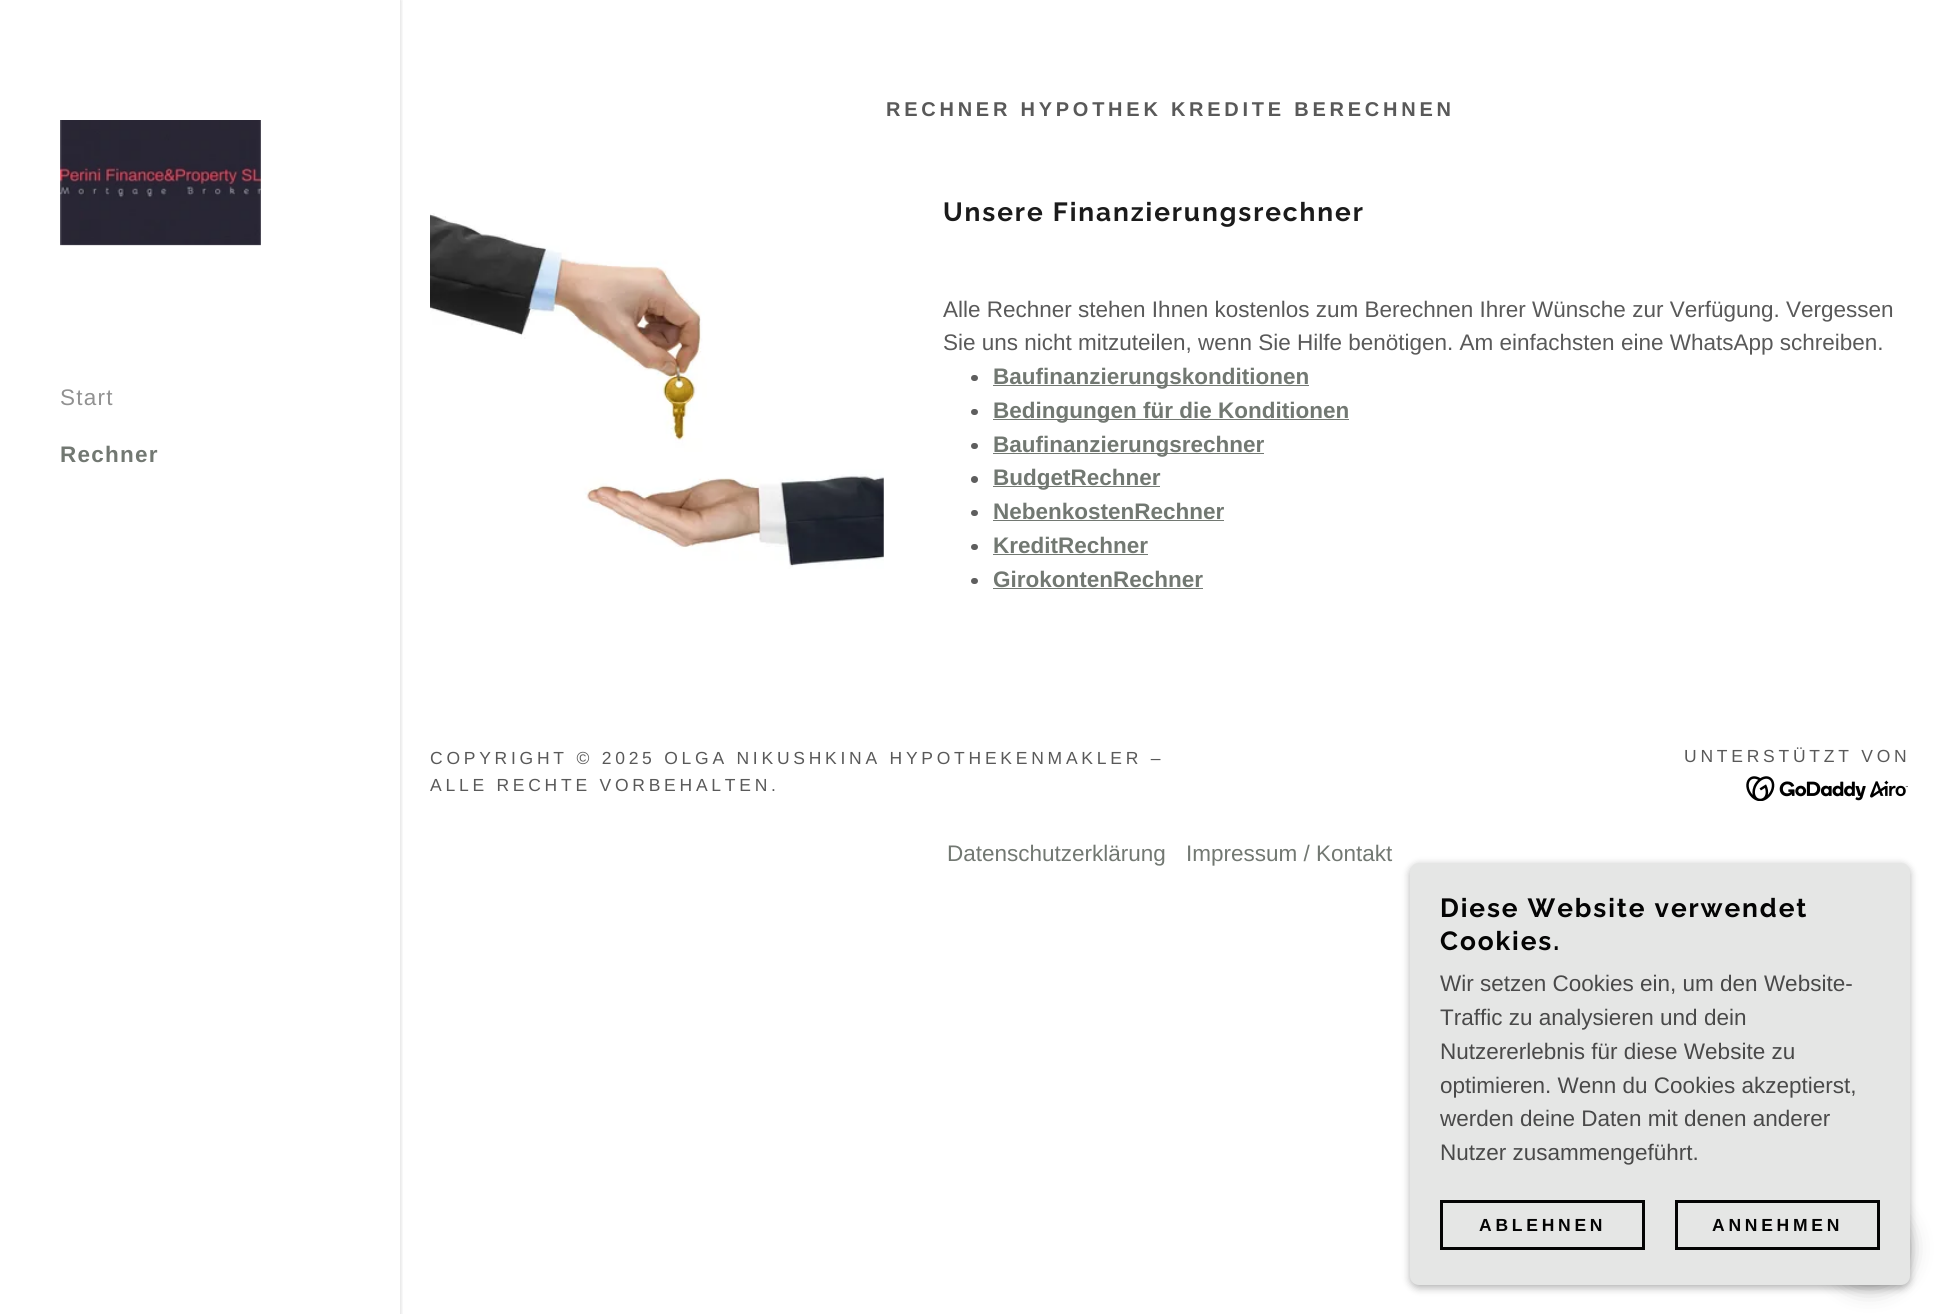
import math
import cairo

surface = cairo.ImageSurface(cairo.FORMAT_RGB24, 1939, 1314)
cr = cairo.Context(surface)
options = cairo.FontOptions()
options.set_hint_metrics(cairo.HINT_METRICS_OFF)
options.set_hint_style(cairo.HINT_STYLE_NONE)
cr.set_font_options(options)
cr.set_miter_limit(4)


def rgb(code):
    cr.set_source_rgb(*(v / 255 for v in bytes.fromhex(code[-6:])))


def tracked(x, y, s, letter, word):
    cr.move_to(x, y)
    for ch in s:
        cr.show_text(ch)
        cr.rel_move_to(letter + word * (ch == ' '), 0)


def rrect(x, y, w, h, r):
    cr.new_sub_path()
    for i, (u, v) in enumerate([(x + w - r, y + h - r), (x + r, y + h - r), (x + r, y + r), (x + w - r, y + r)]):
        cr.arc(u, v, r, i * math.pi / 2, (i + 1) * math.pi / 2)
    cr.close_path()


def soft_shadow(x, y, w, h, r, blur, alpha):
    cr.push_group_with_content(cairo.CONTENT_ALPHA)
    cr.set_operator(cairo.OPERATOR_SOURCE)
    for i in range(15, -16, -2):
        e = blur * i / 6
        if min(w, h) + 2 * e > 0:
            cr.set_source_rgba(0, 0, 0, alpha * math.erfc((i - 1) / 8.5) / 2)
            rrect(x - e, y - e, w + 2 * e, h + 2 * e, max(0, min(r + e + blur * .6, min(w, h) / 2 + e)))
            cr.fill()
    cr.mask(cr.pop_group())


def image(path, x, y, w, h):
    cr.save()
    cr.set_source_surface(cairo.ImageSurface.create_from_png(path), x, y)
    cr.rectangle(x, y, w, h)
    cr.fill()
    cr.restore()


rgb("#ffffff")
cr.paint()
cr.save()
cr.rectangle(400, 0, 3, 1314)
cr.clip()
rgb("#000000")
soft_shadow(0, 0, 400, 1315, 0, 2.5, 0.2)
cr.restore()
image("img/1.png", 60, 120, 201, 126)
image("img/2.png", 430, 213, 454, 356)
rgb("#5e5e5e")
rrect(971, 375, 7, 6, 3)
cr.fill()
rgb("#727872")
cr.rectangle(993, 385, 316, 1)
cr.fill()
rgb("#5e5e5e")
rrect(971, 409, 7, 6, 3)
cr.fill()
rgb("#727872")
cr.rectangle(993, 419, 356, 1)
cr.fill()
rgb("#5e5e5e")
rrect(971, 443, 7, 6, 3)
cr.fill()
rgb("#727872")
cr.rectangle(993, 453, 271, 1)
cr.fill()
rgb("#5e5e5e")
cr.arc(974.5, 479.5, 3.5, 0, 2 * math.pi)
cr.fill()
rgb("#727872")
cr.rectangle(993, 486, 167, 1)
cr.fill()
rgb("#5e5e5e")
rrect(971, 510, 7, 6, 3)
cr.fill()
rgb("#727872")
cr.rectangle(993, 520, 231, 1)
cr.fill()
rgb("#5e5e5e")
rrect(971, 544, 7, 6, 3)
cr.fill()
rgb("#727872")
cr.rectangle(993, 554, 155, 1)
cr.fill()
rgb("#5e5e5e")
rrect(971, 578, 7, 6, 3)
cr.fill()
rgb("#727872")
cr.rectangle(993, 588, 210, 1)
cr.fill()
image("img/3.png", 1746, 776, 162, 25)
rgb("#000000")
soft_shadow(1410, 865, 500, 423, 9, 4, 0.3)
soft_shadow(1829, 1208, 81, 81, 40.5, 11, 0.25)
rgb("#e5e6e5")
rrect(1410, 863, 500, 422, 9)
cr.fill()
cr.rectangle(1441.5, 1201.5, 202, 47)
rgb("#040404")
cr.set_line_width(3)
cr.stroke()
cr.rectangle(1676.5, 1201.5, 202, 47)
cr.stroke()
cr.select_font_face("Liberation Sans")
cr.set_font_size(22.5)
rgb("#919191")
tracked(60, 405, "Start", 1.25, 0)
cr.select_font_face("Liberation Sans", cairo.FONT_SLANT_NORMAL, cairo.FONT_WEIGHT_BOLD)
rgb("#727872")
tracked(60, 462, "Rechner", 1.25, 0)
cr.set_font_size(20)
rgb("#595959")
tracked(886, 116, "RECHNER HYPOTHEK KREDITE BERECHNEN", 3.75, 0)
cr.select_font_face("Raleway", cairo.FONT_SLANT_NORMAL, cairo.FONT_WEIGHT_BOLD)
cr.set_font_size(26.25)
rgb("#1b1b1b")
tracked(943, 221, "Unsere Finanzierungsrechner", 1.9, 0)
cr.select_font_face("Liberation Sans")
cr.set_font_size(22.5)
rgb("#595959")
cr.move_to(943, 317)
cr.show_text("Alle Rechner stehen Ihnen kostenlos zum Berechnen Ihrer Wünsche zur Verfügung. Vergessen")
cr.move_to(943, 350)
cr.show_text("Sie uns nicht mitzuteilen, wenn Sie Hilfe benötigen. Am einfachsten eine WhatsApp schreiben.")
cr.select_font_face("Liberation Sans", cairo.FONT_SLANT_NORMAL, cairo.FONT_WEIGHT_BOLD)
rgb("#727872")
for x, y, s in [
    (993, 384, "Baufinanzierungskonditionen"),
    (993, 418, "Bedingungen für die Konditionen"),
    (993, 452, "Baufinanzierungsrechner"),
    (993, 485, "BudgetRechner"),
    (993, 519, "NebenkostenRechner"),
    (993, 553, "KreditRechner"),
    (993, 587, "GirokontenRechner"),
]:
    cr.move_to(x, y)
    cr.show_text(s)
cr.select_font_face("Liberation Sans")
cr.set_font_size(17.5)
rgb("#595959")
for x, y, s in [
    (430, 764, "COPYRIGHT © 2025 OLGA NIKUSHKINA HYPOTHEKENMAKLER –"),
    (430, 791, "ALLE RECHTE VORBEHALTEN."),
    (1684, 762, "UNTERSTÜTZT VON"),
]:
    tracked(x, y, s, 3.75, 0)
cr.set_font_size(22.5)
rgb("#727872")
cr.move_to(947, 861)
cr.show_text("Datenschutzerklärung")
cr.move_to(1186, 861)
cr.show_text("Impressum / Kontakt")
cr.select_font_face("Raleway", cairo.FONT_SLANT_NORMAL, cairo.FONT_WEIGHT_BOLD)
cr.set_font_size(26.25)
rgb("#040404")
tracked(1440, 917, "Diese Website verwendet", 1.9, 0)
tracked(1440, 950, "Cookies.", 1.9, 0)
cr.select_font_face("Liberation Sans")
cr.set_font_size(22.5)
rgb("#494949")
for x, y, s in [
    (1440, 991, "Wir setzen Cookies ein, um den Website-"),
    (1440, 1025, "Traffic zu analysieren und dein"),
    (1440, 1059, "Nutzererlebnis für diese Website zu"),
    (1440, 1093, "optimieren. Wenn du Cookies akzeptierst,"),
    (1440, 1126, "werden deine Daten mit denen anderer"),
    (1440, 1160, "Nutzer zusammengeführt."),
]:
    cr.move_to(x, y)
    cr.show_text(s)
cr.select_font_face("Liberation Sans", cairo.FONT_SLANT_NORMAL, cairo.FONT_WEIGHT_BOLD)
cr.set_font_size(17.5)
rgb("#040404")
tracked(1479, 1231, "ABLEHNEN", 3.75, 0)
tracked(1712, 1231, "ANNEHMEN", 3.75, 0)
surface.write_to_png("page.png")
